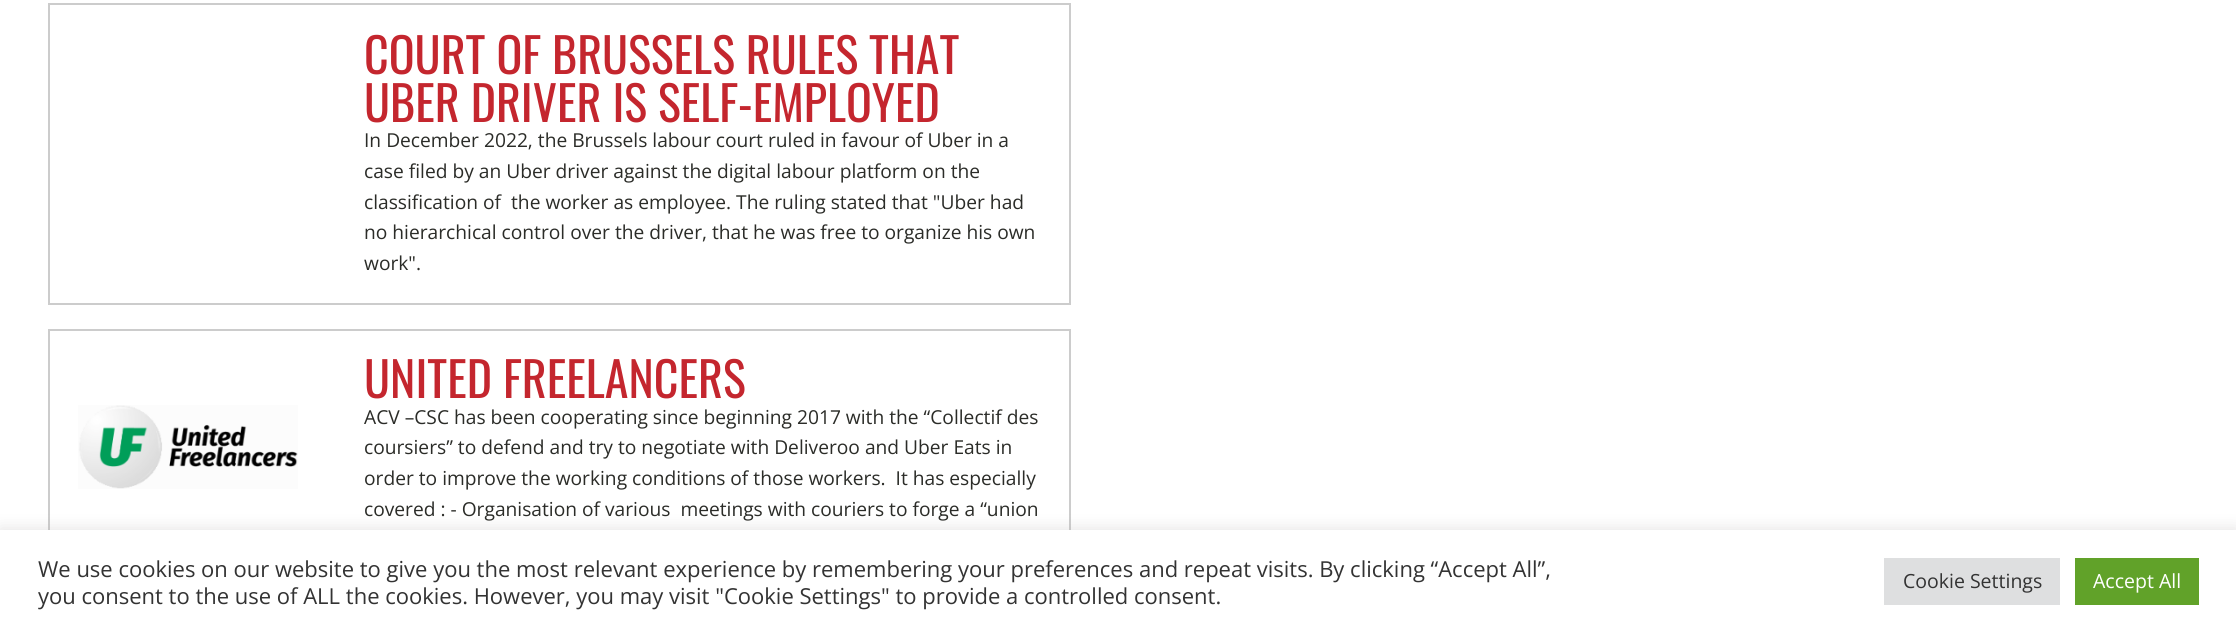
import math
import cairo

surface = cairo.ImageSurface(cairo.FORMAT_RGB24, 2236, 632)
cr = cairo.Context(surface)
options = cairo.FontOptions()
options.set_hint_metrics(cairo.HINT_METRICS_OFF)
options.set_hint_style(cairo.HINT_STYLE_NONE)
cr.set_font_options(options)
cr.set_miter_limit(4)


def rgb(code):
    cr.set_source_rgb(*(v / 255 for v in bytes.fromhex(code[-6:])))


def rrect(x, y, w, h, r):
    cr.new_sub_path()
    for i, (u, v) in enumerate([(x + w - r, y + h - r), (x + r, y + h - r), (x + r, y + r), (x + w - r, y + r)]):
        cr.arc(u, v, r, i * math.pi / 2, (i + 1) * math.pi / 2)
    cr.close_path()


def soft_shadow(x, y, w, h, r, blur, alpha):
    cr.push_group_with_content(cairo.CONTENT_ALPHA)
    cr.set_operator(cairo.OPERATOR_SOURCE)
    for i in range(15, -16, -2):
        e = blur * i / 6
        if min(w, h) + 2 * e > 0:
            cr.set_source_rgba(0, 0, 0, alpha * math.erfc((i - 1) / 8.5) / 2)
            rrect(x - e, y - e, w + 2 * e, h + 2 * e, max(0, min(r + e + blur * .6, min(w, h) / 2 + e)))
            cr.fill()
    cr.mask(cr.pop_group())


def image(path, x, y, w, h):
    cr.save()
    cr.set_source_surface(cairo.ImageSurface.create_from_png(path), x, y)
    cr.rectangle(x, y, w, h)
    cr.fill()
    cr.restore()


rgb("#ffffff")
cr.paint()
cr.rectangle(49, 4, 1021, 300)
rgb("#cccccc")
cr.stroke()
cr.rectangle(49, 330, 1021, 250)
cr.stroke()
image("img/1.png", 78, 405, 220, 84)
rgb("#acabab")
soft_shadow(0, 528, 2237, 104, 0, 7.5, 0.3)
for x, y, w, h, color in [
    (0, 530, 2236, 102, "#ffffff"),
    (1884, 558, 176, 47, "#dedfe0"),
    (2075, 558, 124, 47, "#61a229"),
]:
    rgb(color)
    cr.rectangle(x, y, w, h)
    cr.fill()
cr.select_font_face("Oswald")
cr.set_font_size(48)
rgb("#c4262e")
cr.move_to(364, 74)
cr.show_text("COURT OF BRUSSELS RULES THAT")
cr.move_to(364, 122)
cr.show_text("UBER DRIVER IS SELF-EMPLOYED")
cr.select_font_face("Open Sans")
cr.set_font_size(19.2)
rgb("#2b2c28")
for x, y, s in [
    (364, 147, "In December 2022, the Brussels labour court ruled in favour of Uber in a"),
    (364, 178, "case filed by an Uber driver against the digital labour platform on the"),
    (364, 209, "classification of  the worker as employee. The ruling stated that \"Uber had"),
    (364, 239, "no hierarchical control over the driver, that he was free to organize his own"),
    (364, 270, "work\"."),
]:
    cr.move_to(x, y)
    cr.show_text(s)
cr.select_font_face("Oswald")
cr.set_font_size(48)
rgb("#c4262e")
cr.move_to(364, 398)
cr.show_text("UNITED FREELANCERS")
cr.select_font_face("Open Sans")
cr.set_font_size(19.2)
rgb("#2b2c28")
for x, y, s in [
    (364, 424, "ACV –CSC has been cooperating since beginning 2017 with the “Collectif des"),
    (364, 454, "coursiers” to defend and try to negotiate with Deliveroo and Uber Eats in"),
    (364, 485, "order to improve the working conditions of those workers.  It has especially"),
    (364, 516, "covered : - Organisation of various  meetings with couriers to forge a “union"),
]:
    cr.move_to(x, y)
    cr.show_text(s)
cr.set_font_size(22)
rgb("#333333")
cr.move_to(38, 577)
cr.show_text("We use cookies on our website to give you the most relevant experience by remembering your preferences and repeat visits. By clicking “Accept All”,")
cr.move_to(38, 604)
cr.show_text("you consent to the use of ALL the cookies. However, you may visit \"Cookie Settings\" to provide a controlled consent.")
cr.set_font_size(19.5)
cr.move_to(1903, 588)
cr.show_text("Cookie Settings")
rgb("#ffffff")
cr.move_to(2093, 588)
cr.show_text("Accept All")
surface.write_to_png("page.png")
